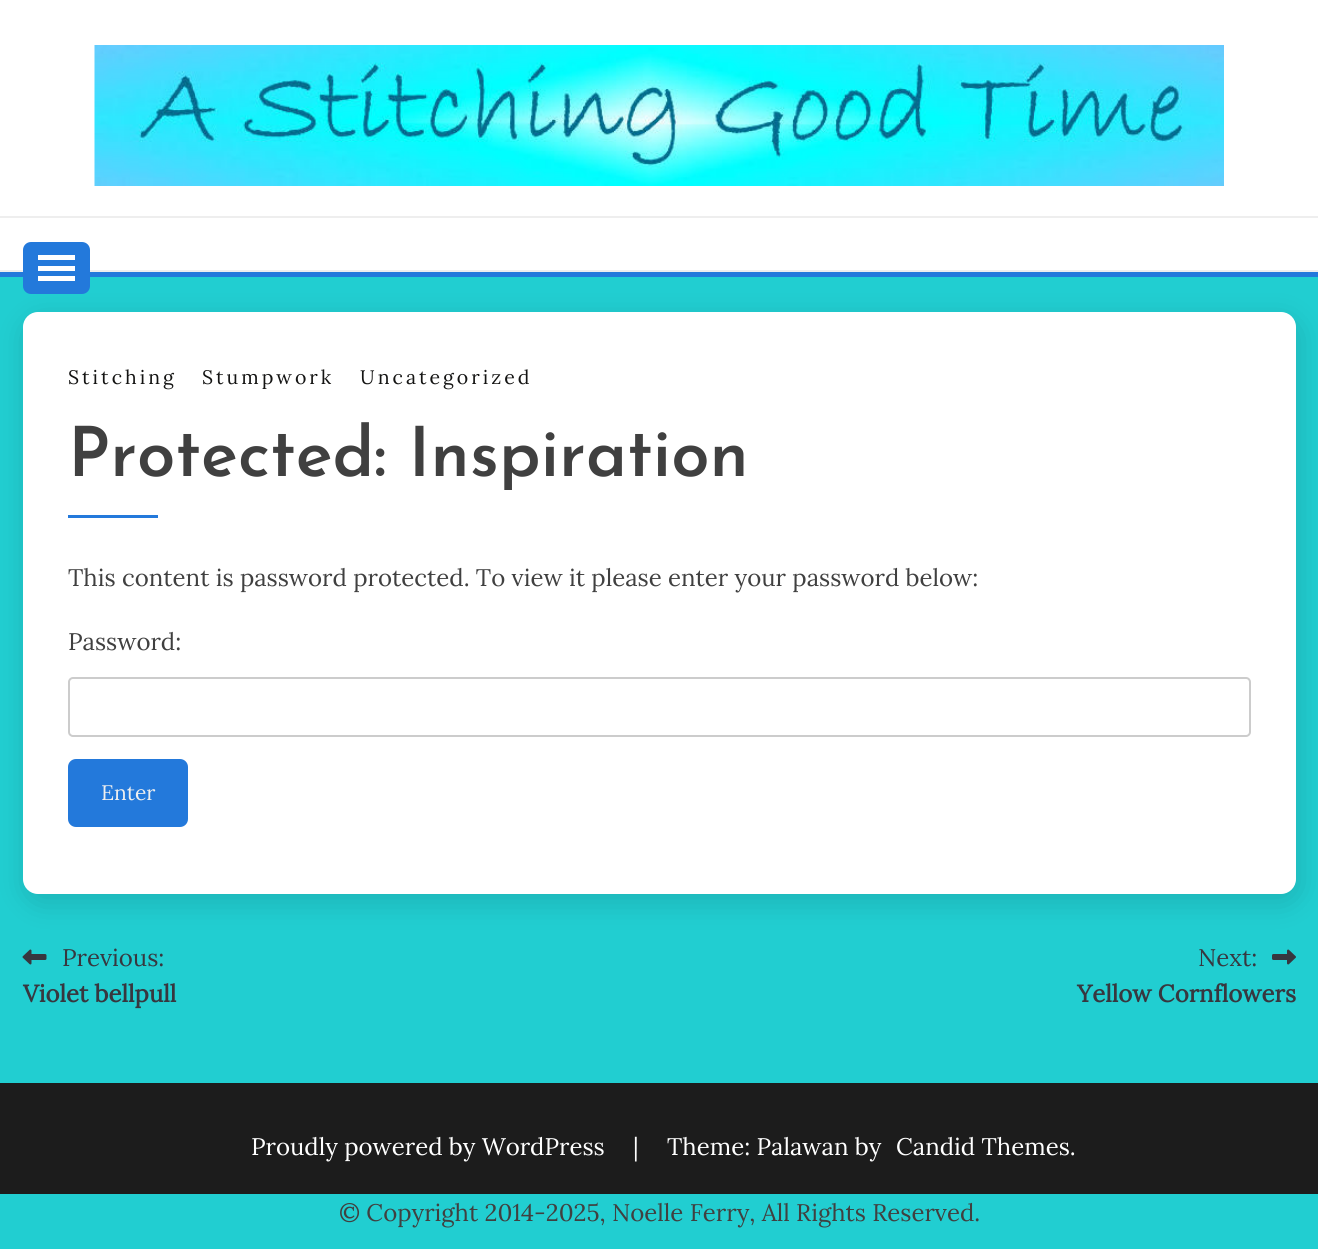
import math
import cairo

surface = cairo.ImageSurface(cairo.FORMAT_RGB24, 1318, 1249)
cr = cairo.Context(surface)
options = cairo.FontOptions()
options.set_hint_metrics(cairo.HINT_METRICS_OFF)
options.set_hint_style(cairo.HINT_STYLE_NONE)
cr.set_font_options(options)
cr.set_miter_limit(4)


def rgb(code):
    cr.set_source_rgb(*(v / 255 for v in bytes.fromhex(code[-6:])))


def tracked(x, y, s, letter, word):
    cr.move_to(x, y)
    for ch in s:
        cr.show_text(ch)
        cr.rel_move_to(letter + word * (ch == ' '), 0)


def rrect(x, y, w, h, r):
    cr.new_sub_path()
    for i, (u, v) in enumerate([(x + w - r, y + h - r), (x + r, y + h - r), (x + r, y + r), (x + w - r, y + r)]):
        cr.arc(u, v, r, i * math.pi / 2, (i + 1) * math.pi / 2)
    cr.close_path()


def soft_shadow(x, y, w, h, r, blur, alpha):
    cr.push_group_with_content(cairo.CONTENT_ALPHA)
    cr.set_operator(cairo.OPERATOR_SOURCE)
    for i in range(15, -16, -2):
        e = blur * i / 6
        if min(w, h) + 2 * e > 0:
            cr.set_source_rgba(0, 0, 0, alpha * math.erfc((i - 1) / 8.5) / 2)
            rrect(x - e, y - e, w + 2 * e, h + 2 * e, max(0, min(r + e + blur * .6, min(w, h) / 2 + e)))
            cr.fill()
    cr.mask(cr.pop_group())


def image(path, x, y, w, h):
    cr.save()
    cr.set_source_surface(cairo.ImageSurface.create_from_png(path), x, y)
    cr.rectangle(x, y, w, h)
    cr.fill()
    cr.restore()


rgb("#21ced1")
cr.paint()
rgb("#ffffff")
cr.rectangle(0, 0, 1318, 270)
cr.fill()
rgb("#eeeeee")
cr.rectangle(0, 270, 1318, 2)
cr.fill()
image("img/1.png", 94, 45, 1130, 141)
rgb("#000000")
soft_shadow(26, 320, 1273, 582, 15, 15, 0.14)
rgb("#2379db")
cr.rectangle(0, 272, 1318, 5)
cr.fill()
rrect(23, 242, 67, 52, 8)
cr.fill()
for x, y, w, h, color in [
    (38, 255, 37, 5, "#ffffff"),
    (38, 266, 37, 5, "#ffffff"),
    (38, 276, 37, 5, "#ffffff"),
    (0, 216, 1318, 2, "#eeeeee"),
]:
    rgb(color)
    cr.rectangle(x, y, w, h)
    cr.fill()
rgb("#ffffff")
rrect(23, 312, 1273, 582, 15)
cr.fill()
rgb("#2379db")
cr.rectangle(68, 515, 90, 3)
cr.fill()
rrect(69, 678, 1181, 58, 4)
rgb("#cccccc")
cr.stroke()
rgb("#2379db")
rrect(68, 759, 120, 68, 8)
cr.fill()
image("img/2.png", 22, 949, 25, 16)
image("img/3.png", 1272, 949, 24, 16)
rgb("#1c1c1c")
cr.rectangle(0, 1083, 1318, 111)
cr.fill()
cr.select_font_face("Lora")
cr.set_font_size(19.5)
rgb("#141413")
for x, y, s in [
    (68, 384, "Stitching"),
    (202, 384, "Stumpwork"),
    (360, 384, "Uncategorized"),
]:
    tracked(x, y, s, 3, 0)
cr.select_font_face("Josefin Sans SemiBold")
cr.set_font_size(69)
rgb("#404040")
cr.move_to(68, 476)
cr.show_text("Protected: Inspiration")
cr.select_font_face("Lora")
cr.set_font_size(24)
cr.move_to(68, 586)
cr.show_text("This content is password protected. To view it please enter your password below:")
cr.move_to(68, 650)
cr.show_text("Password:")
cr.set_font_size(21)
rgb("#efefef")
cr.move_to(101, 800)
cr.show_text("Enter")
cr.set_font_size(24)
rgb("#37373f")
cr.move_to(62, 966)
cr.show_text("Previous:")
cr.select_font_face("Lora", cairo.FONT_SLANT_NORMAL, cairo.FONT_WEIGHT_BOLD)
cr.move_to(23, 1002)
cr.show_text("Violet bellpull")
cr.select_font_face("Lora")
cr.move_to(1198, 966)
cr.show_text("Next:")
cr.select_font_face("Lora", cairo.FONT_SLANT_NORMAL, cairo.FONT_WEIGHT_BOLD)
cr.move_to(1077, 1002)
cr.show_text("Yellow Cornflowers")
cr.select_font_face("Lora")
rgb("#ffffff")
for x, y, s in [
    (251, 1155, "Proudly powered by WordPress"),
    (633, 1155, "|"),
    (667, 1155, "Theme: Palawan by"),
    (896, 1155, "Candid Themes."),
]:
    cr.move_to(x, y)
    cr.show_text(s)
rgb("#404040")
cr.move_to(339, 1221)
cr.show_text("© Copyright 2014-2025, Noelle Ferry, All Rights Reserved.")
surface.write_to_png("page.png")
